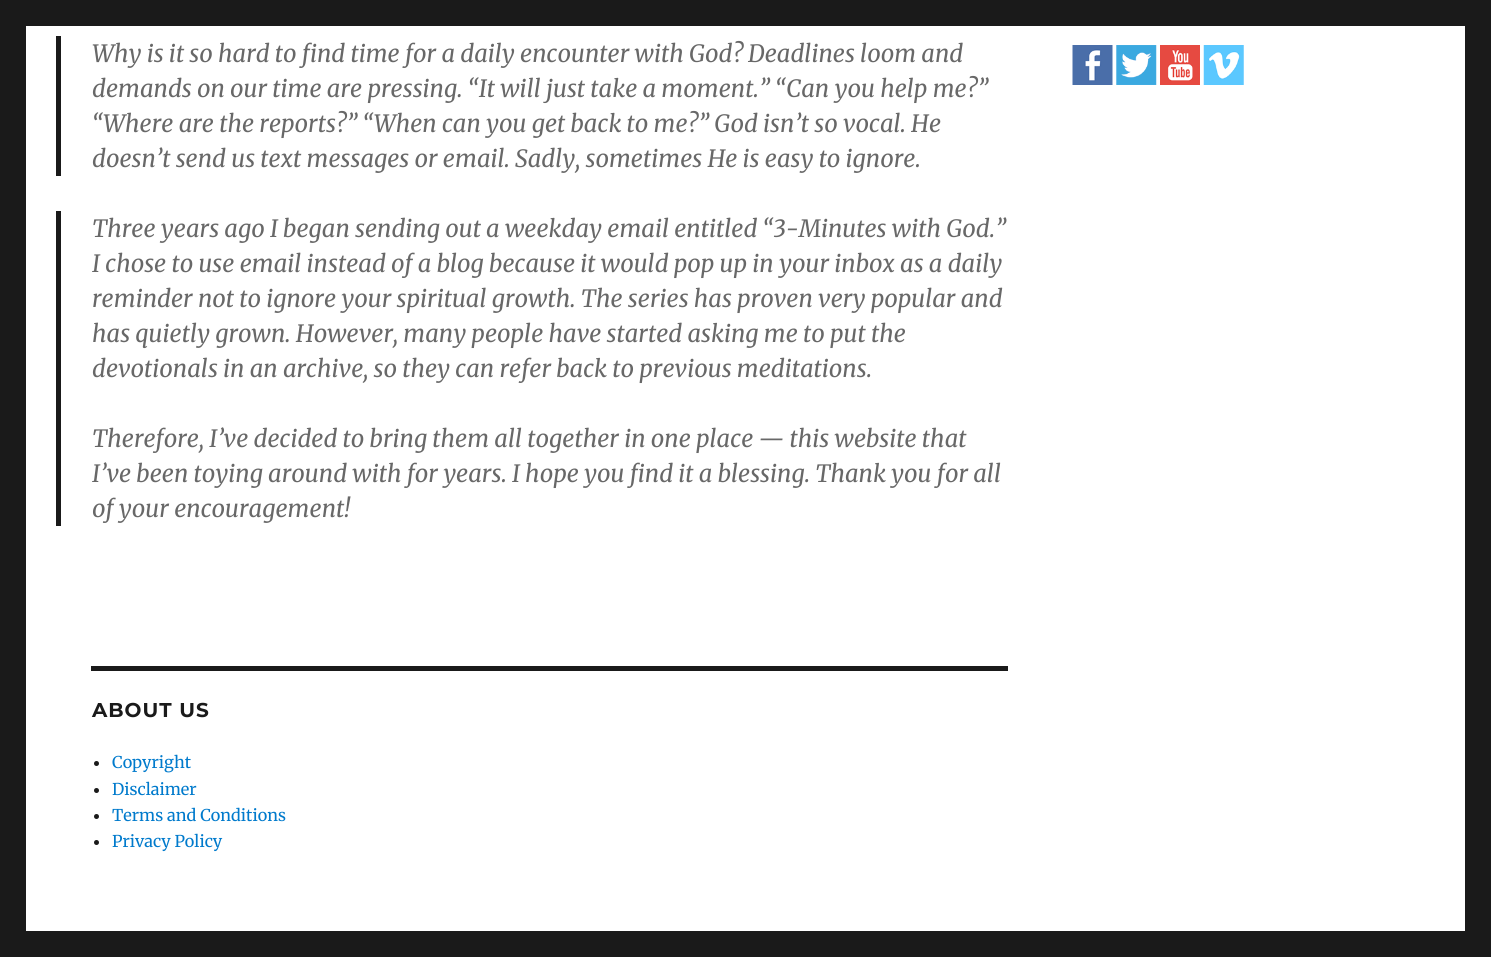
import math
import cairo

surface = cairo.ImageSurface(cairo.FORMAT_RGB24, 1491, 957)
cr = cairo.Context(surface)
options = cairo.FontOptions()
options.set_hint_metrics(cairo.HINT_METRICS_OFF)
options.set_hint_style(cairo.HINT_STYLE_NONE)
cr.set_font_options(options)
cr.set_miter_limit(4)


def rgb(code):
    cr.set_source_rgb(*(v / 255 for v in bytes.fromhex(code[-6:])))


def tracked(x, y, s, letter, word):
    cr.move_to(x, y)
    for ch in s:
        cr.show_text(ch)
        cr.rel_move_to(letter + word * (ch == ' '), 0)


def image(path, x, y, w, h):
    cr.save()
    cr.set_source_surface(cairo.ImageSurface.create_from_png(path), x, y)
    cr.rectangle(x, y, w, h)
    cr.fill()
    cr.restore()


rgb("#1a1a1a")
cr.paint()
for x, y, w, h, color in [
    (26, 26, 1439, 905, "#ffffff"),
    (56, 36, 5, 140, "#1a1a1a"),
    (56, 211, 5, 315, "#1a1a1a"),
    (91, 666, 917, 5, "#1a1a1a"),
]:
    rgb(color)
    cr.rectangle(x, y, w, h)
    cr.fill()
cr.arc(96.5, 763.5, 2.5, 0, 2 * math.pi)
cr.fill()
cr.arc(96.5, 790.5, 2.5, 0, 2 * math.pi)
cr.fill()
cr.arc(96.5, 816.5, 2.5, 0, 2 * math.pi)
cr.fill()
cr.arc(96.5, 842.5, 2.5, 0, 2 * math.pi)
cr.fill()
image("img/1.png", 1072, 45, 41, 40)
image("img/2.png", 1116, 45, 41, 40)
image("img/3.png", 1160, 45, 40, 40)
image("img/4.png", 1203, 45, 41, 40)
cr.select_font_face("Merriweather", cairo.FONT_SLANT_ITALIC)
cr.set_font_size(23.75)
rgb("#686868")
for x, y, s in [
    (92, 62, "Why is it so hard to find time for a daily encounter with God? Deadlines loom and"),
    (92, 97, "demands on our time are pressing. “It will just take a moment.” “Can you help me?”"),
    (92, 132, "“Where are the reports?” “When can you get back to me?” God isn’t so vocal. He"),
    (92, 167, "doesn’t send us text messages or email. Sadly, sometimes He is easy to ignore."),
    (92, 237, "Three years ago I began sending out a weekday email entitled “3-Minutes with God.”"),
    (92, 272, "I chose to use email instead of a blog because it would pop up in your inbox as a daily"),
    (92, 307, "reminder not to ignore your spiritual growth. The series has proven very popular and"),
    (92, 342, "has quietly grown. However, many people have started asking me to put the"),
    (92, 377, "devotionals in an archive, so they can refer back to previous meditations."),
    (92, 447, "Therefore, I’ve decided to bring them all together in one place — this website that"),
    (92, 482, "I’ve been toying around with for years. I hope you find it a blessing. Thank you for all"),
    (92, 517, "of your encouragement!"),
]:
    cr.move_to(x, y)
    cr.show_text(s)
cr.select_font_face("Montserrat", cairo.FONT_SLANT_NORMAL, cairo.FONT_WEIGHT_BOLD)
cr.set_font_size(20)
rgb("#1a1a1a")
tracked(92, 717, "ABOUT US", 1, 0)
cr.select_font_face("Merriweather")
cr.set_font_size(16.25)
rgb("#007acc")
for x, y, s in [
    (112, 768, "Copyright"),
    (112, 795, "Disclaimer"),
    (112, 821, "Terms and Conditions"),
    (112, 847, "Privacy Policy"),
]:
    cr.move_to(x, y)
    cr.show_text(s)
surface.write_to_png("page.png")
